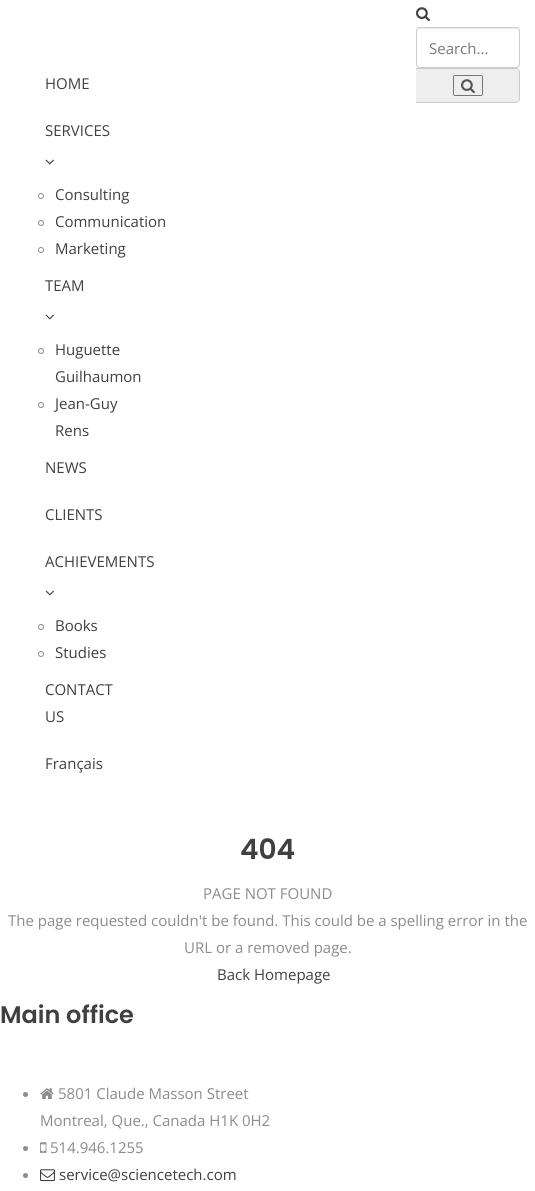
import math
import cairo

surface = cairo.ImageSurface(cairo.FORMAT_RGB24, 535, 1191)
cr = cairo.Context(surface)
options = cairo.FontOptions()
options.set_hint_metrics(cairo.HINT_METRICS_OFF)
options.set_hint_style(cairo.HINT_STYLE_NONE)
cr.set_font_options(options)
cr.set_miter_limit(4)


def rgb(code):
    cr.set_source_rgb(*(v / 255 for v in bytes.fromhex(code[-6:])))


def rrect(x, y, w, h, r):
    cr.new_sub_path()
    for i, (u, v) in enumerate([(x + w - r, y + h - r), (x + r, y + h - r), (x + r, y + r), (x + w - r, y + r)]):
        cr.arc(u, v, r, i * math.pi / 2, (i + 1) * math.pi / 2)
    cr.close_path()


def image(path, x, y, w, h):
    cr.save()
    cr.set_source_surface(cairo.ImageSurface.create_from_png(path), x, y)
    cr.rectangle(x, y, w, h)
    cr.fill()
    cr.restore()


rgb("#ffffff")
cr.paint()
image("img/1.png", 416, 7, 14, 15)
rgb("#ececec")
cr.new_path()
cr.move_to(420, 29)
cr.line_to(516, 29)
cr.curve_to(518, 29, 519, 30, 519, 32)
cr.curve_to(519, 24, 503, 28, 500, 28)
cr.line_to(436, 28)
cr.curve_to(433, 28, 417, 24, 417, 32)
cr.curve_to(417, 30, 418, 29, 420, 29)
cr.close_path()
cr.fill()
rrect(416.5, 27.5, 103, 40, 3.5)
rgb("#cccccc")
cr.set_line_width(1)
cr.stroke()
rgb("#eeeeee")
cr.new_path()
cr.move_to(416, 68)
cr.line_to(516, 68)
cr.curve_to(518, 68, 520, 70, 520, 72)
cr.line_to(520, 99)
cr.curve_to(520, 101, 518, 103, 516, 103)
cr.line_to(416, 103)
cr.close_path()
cr.fill()
rgb("#cccccc")
cr.set_fill_rule(cairo.FILL_RULE_EVEN_ODD)
cr.new_path()
cr.move_to(416, 68)
cr.line_to(516, 68)
cr.curve_to(518, 68, 520, 70, 520, 72)
cr.line_to(520, 99)
cr.curve_to(520, 101, 518, 103, 516, 103)
cr.line_to(416, 103)
cr.close_path()
cr.move_to(416, 69)
cr.line_to(516, 69)
cr.curve_to(518, 69, 519, 70, 519, 72)
cr.line_to(519, 99)
cr.curve_to(519, 101, 518, 102, 516, 102)
cr.line_to(416, 102)
cr.close_path()
cr.fill()
rrect(453.5, 75.5, 29, 20, 1.5)
rgb("#767676")
cr.stroke()
image("img/2.png", 461, 79, 14, 15)
image("img/3.png", 45, 159, 9, 6)
cr.arc(41, 196, 2.5, 0, 2 * math.pi)
rgb("#8c8c8c")
cr.stroke()
cr.arc(41, 223, 2.5, 0, 2 * math.pi)
cr.stroke()
cr.arc(41, 250, 2.5, 0, 2 * math.pi)
cr.stroke()
image("img/3.png", 45, 314, 9, 6)
cr.arc(41, 351, 2.5, 0, 2 * math.pi)
cr.stroke()
cr.arc(41, 405, 2.5, 0, 2 * math.pi)
cr.stroke()
image("img/3.png", 45, 590, 9, 6)
cr.arc(41, 627, 2.5, 0, 2 * math.pi)
cr.stroke()
cr.arc(41, 654, 2.5, 0, 2 * math.pi)
cr.stroke()
cr.arc(25.5, 1094.5, 2.5, 0, 2 * math.pi)
cr.fill()
image("img/4.png", 40, 1088, 14, 11)
cr.arc(25.5, 1148.5, 2.5, 0, 2 * math.pi)
cr.fill()
image("img/5.png", 40, 1142, 7, 11)
cr.arc(25.5, 1175.5, 2.5, 0, 2 * math.pi)
cr.fill()
image("img/6.png", 40, 1169, 15, 13)
cr.select_font_face("Open Sans")
cr.set_font_size(15)
rgb("#777777")
cr.move_to(429, 54)
cr.show_text("Search...")
rgb("#404040")
for x, y, s in [
    (45, 89, "HOME"),
    (45, 136, "SERVICES"),
    (55, 200, "Consulting"),
    (55, 227, "Communication"),
    (55, 254, "Marketing"),
    (45, 291, "TEAM"),
    (55, 355, "Huguette"),
    (55, 382, "Guilhaumon"),
    (55, 409, "Jean-Guy"),
    (55, 436, "Rens"),
    (45, 473, "NEWS"),
    (45, 520, "CLIENTS"),
    (45, 567, "ACHIEVEMENTS"),
    (55, 631, "Books"),
    (55, 658, "Studies"),
    (45, 695, "CONTACT"),
    (45, 722, "US"),
    (45, 769, "Français"),
]:
    cr.move_to(x, y)
    cr.show_text(s)
cr.select_font_face("Poppins SemiBold")
cr.set_font_size(28)
cr.move_to(240, 859)
cr.show_text("404")
cr.select_font_face("Open Sans")
cr.set_font_size(15)
rgb("#8c8c8c")
for x, y, s in [
    (203, 899, "PAGE NOT FOUND"),
    (8, 926, "The page requested couldn't be found. This could be a spelling error in the"),
    (184, 953, "URL or a removed page."),
]:
    cr.move_to(x, y)
    cr.show_text(s)
rgb("#404040")
cr.move_to(217, 980)
cr.show_text("Back Homepage")
cr.select_font_face("Poppins SemiBold")
cr.set_font_size(24)
cr.move_to(0, 1023)
cr.show_text("Main office")
cr.select_font_face("Open Sans")
cr.set_font_size(15)
rgb("#8c8c8c")
for x, y, s in [
    (58, 1099, "5801 Claude Masson Street"),
    (40, 1126, "Montreal, Que., Canada H1K 0H2"),
    (50, 1153, "514.946.1255"),
]:
    cr.move_to(x, y)
    cr.show_text(s)
rgb("#404040")
cr.move_to(59, 1180)
cr.show_text("service@sciencetech.com")
surface.write_to_png("page.png")
